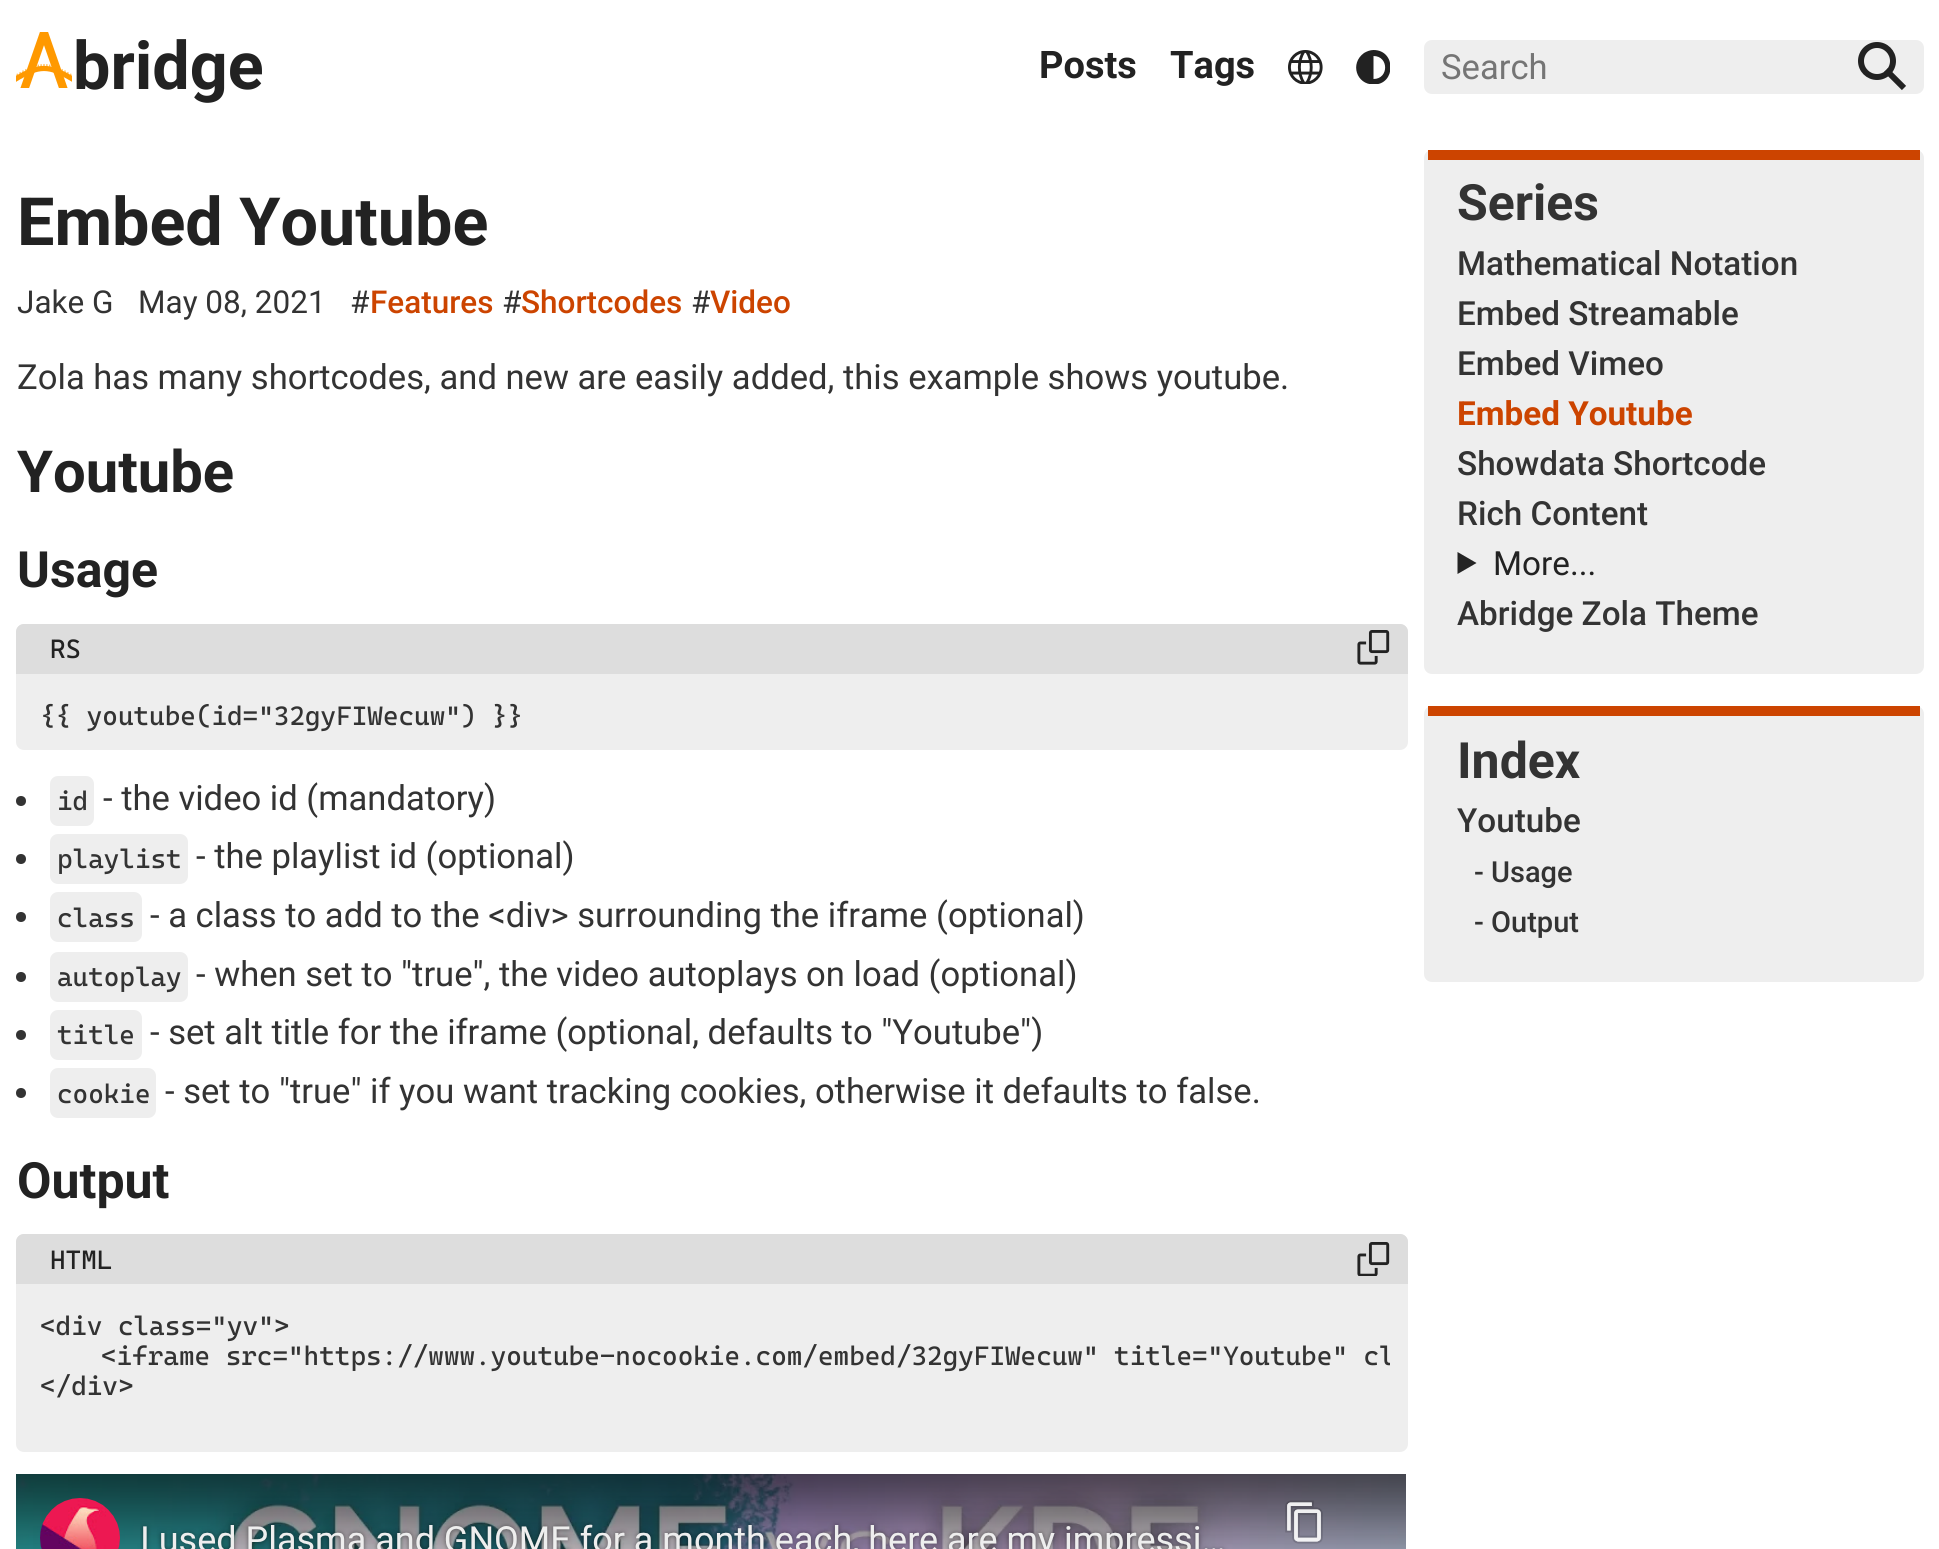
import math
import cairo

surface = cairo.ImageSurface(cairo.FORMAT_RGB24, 1939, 1549)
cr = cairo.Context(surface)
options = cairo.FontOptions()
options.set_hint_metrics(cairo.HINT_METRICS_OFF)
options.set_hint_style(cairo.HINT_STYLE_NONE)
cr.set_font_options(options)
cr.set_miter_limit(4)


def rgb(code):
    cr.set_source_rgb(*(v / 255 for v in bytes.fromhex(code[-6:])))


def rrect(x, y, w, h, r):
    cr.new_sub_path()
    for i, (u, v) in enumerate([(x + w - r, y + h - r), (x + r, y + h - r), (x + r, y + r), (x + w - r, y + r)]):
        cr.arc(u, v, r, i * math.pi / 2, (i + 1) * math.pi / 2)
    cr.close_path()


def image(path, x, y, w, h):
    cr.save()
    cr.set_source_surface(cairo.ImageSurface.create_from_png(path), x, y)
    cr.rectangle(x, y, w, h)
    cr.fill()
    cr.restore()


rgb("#ffffff")
cr.paint()
image("img/1.png", 16, 32, 56, 56)
image("img/2.png", 1288, 50, 35, 34)
cr.save()
cr.rectangle(1356, 50, 34, 34)
cr.clip()
rgb("#222222")
cr.new_path()
cr.move_to(1373.5, 50)
cr.curve_to(1370, 50, 1366.5, 51.5, 1364, 53)
cr.curve_to(1349.5, 63.5, 1356.5, 84.5, 1373.5, 84.5)
cr.curve_to(1396, 85, 1396.5, 50, 1373.5, 50)
cr.close_path()
cr.move_to(1373.5, 56)
cr.curve_to(1389, 56, 1389, 79, 1373.5, 79)
cr.close_path()
cr.fill()
cr.restore()
rgb("#eeeeee")
rrect(1424, 40, 500, 54, 8)
cr.fill()
cr.arc(1877, 61, 16, 0, 2 * math.pi)
rgb("#222222")
cr.set_line_width(6)
cr.stroke()
cr.new_path()
cr.move_to(1904, 88)
cr.line_to(1886, 70)
cr.stroke()
rgb("#eeeeee")
rrect(16, 624, 1392, 126, 8)
cr.fill()
rgb("#dddddd")
cr.new_path()
cr.move_to(24, 624)
cr.line_to(1400, 624)
cr.curve_to(1404.5, 624, 1408, 627.5, 1408, 632)
cr.line_to(1408, 674)
cr.line_to(16, 674)
cr.line_to(16, 632)
cr.curve_to(16, 627.5, 19.5, 624, 24, 624)
cr.close_path()
cr.fill()
image("img/3.png", 1357, 630, 33, 35)
rgb("#333333")
cr.arc(21, 801, 5, 0, 2 * math.pi)
cr.fill()
rgb("#eeeeee")
rrect(50, 776, 44, 50, 8)
cr.fill()
rgb("#333333")
cr.arc(21, 859, 5, 0, 2 * math.pi)
cr.fill()
rgb("#eeeeee")
rrect(50, 834, 138, 50, 8)
cr.fill()
rgb("#333333")
cr.arc(21, 917, 5, 0, 2 * math.pi)
cr.fill()
rgb("#eeeeee")
rrect(50, 892, 92, 50, 8)
cr.fill()
rgb("#333333")
cr.arc(21, 977, 5, 0, 2 * math.pi)
cr.fill()
rgb("#eeeeee")
rrect(50, 952, 138, 50, 8)
cr.fill()
rgb("#333333")
cr.arc(21, 1035, 5, 0, 2 * math.pi)
cr.fill()
rgb("#eeeeee")
rrect(50, 1010, 92, 50, 8)
cr.fill()
rgb("#333333")
cr.arc(21, 1093, 5, 0, 2 * math.pi)
cr.fill()
rgb("#eeeeee")
rrect(50, 1068, 106, 50, 8)
cr.fill()
rrect(16, 1234, 1392, 218, 8)
cr.fill()
rgb("#dddddd")
cr.new_path()
cr.move_to(24, 1234)
cr.line_to(1400, 1234)
cr.curve_to(1404.5, 1234, 1408, 1237.5, 1408, 1242)
cr.line_to(1408, 1284)
cr.line_to(16, 1284)
cr.line_to(16, 1242)
cr.curve_to(16, 1237.5, 19.5, 1234, 24, 1234)
cr.close_path()
cr.fill()
image("img/4.png", 1357, 1242, 33, 34)
image("img/5.png", 16, 1474, 1390, 75)
rgb("#eeeeee")
rrect(1424, 150, 500, 524, 8)
cr.fill()
rgb("#cc4400")
cr.rectangle(1428, 150, 492, 10)
cr.fill()
rgb("#242424")
cr.new_path()
cr.move_to(1457.5, 552)
cr.line_to(1476.5, 563)
cr.line_to(1457.5, 574)
cr.close_path()
cr.fill()
rgb("#eeeeee")
rrect(1424, 706, 500, 276, 8)
cr.fill()
rgb("#cc4400")
cr.rectangle(1428, 706, 492, 10)
cr.fill()
cr.select_font_face("Roboto", cairo.FONT_SLANT_NORMAL, cairo.FONT_WEIGHT_BOLD)
cr.set_font_size(66.5)
rgb("#222222")
cr.move_to(73, 89)
cr.show_text("bridge")
cr.set_font_size(38)
cr.move_to(1039, 78)
cr.show_text("Posts")
cr.move_to(1170, 78)
cr.show_text("Tags")
cr.select_font_face("Roboto")
cr.set_font_size(34.6)
rgb("#757575")
cr.move_to(1441, 79)
cr.show_text("Search")
cr.select_font_face("Roboto", cairo.FONT_SLANT_NORMAL, cairo.FONT_WEIGHT_BOLD)
cr.set_font_size(66.5)
rgb("#222222")
cr.move_to(17, 245)
cr.show_text("Embed Youtube")
cr.select_font_face("Roboto")
cr.set_font_size(31.5)
rgb("#333333")
for x, y, s in [
    (17, 313, "Jake G"),
    (138, 313, "May 08, 2021"),
    (350, 313, "#"),
]:
    cr.move_to(x, y)
    cr.show_text(s)
cr.select_font_face("Roboto Medium")
rgb("#cc4400")
cr.move_to(370, 313)
cr.show_text("Features")
cr.select_font_face("Roboto")
rgb("#333333")
cr.move_to(502, 313)
cr.show_text("#")
cr.select_font_face("Roboto Medium")
rgb("#cc4400")
cr.move_to(521, 313)
cr.show_text("Shortcodes")
cr.select_font_face("Roboto")
rgb("#333333")
cr.move_to(691, 313)
cr.show_text("#")
cr.select_font_face("Roboto Medium")
rgb("#cc4400")
cr.move_to(710, 313)
cr.show_text("Video")
cr.select_font_face("Roboto")
cr.set_font_size(34.6)
rgb("#333333")
cr.move_to(17, 389)
cr.show_text("Zola has many shortcodes, and new are easily added, this example shows youtube.")
cr.select_font_face("Roboto", cairo.FONT_SLANT_NORMAL, cairo.FONT_WEIGHT_BOLD)
cr.set_font_size(58)
rgb("#222222")
cr.move_to(17, 492)
cr.show_text("Youtube")
cr.set_font_size(50)
cr.move_to(17, 587)
cr.show_text("Usage")
cr.select_font_face("Cascadia Mono")
cr.set_font_size(26.6)
cr.move_to(50, 658)
cr.show_text("RS")
rgb("#333333")
cr.move_to(40, 725)
cr.show_text("{{ youtube(id=\"32gyFIWecuw\") }}")
cr.move_to(57, 810)
cr.show_text("id")
cr.select_font_face("Roboto")
cr.set_font_size(34.6)
cr.move_to(103, 810)
cr.show_text("- the video id (mandatory)")
cr.select_font_face("Cascadia Mono")
cr.set_font_size(26.6)
cr.move_to(57, 868)
cr.show_text("playlist")
cr.select_font_face("Roboto")
cr.set_font_size(34.6)
cr.move_to(196, 868)
cr.show_text("- the playlist id (optional)")
cr.select_font_face("Cascadia Mono")
cr.set_font_size(26.6)
cr.move_to(57, 927)
cr.show_text("class")
cr.select_font_face("Roboto")
cr.set_font_size(34.6)
cr.move_to(150, 927)
cr.show_text("- a class to add to the <div> surrounding the iframe (optional)")
cr.select_font_face("Cascadia Mono")
cr.set_font_size(26.6)
cr.move_to(57, 986)
cr.show_text("autoplay")
cr.select_font_face("Roboto")
cr.set_font_size(34.6)
cr.move_to(196, 986)
cr.show_text("- when set to \"true\", the video autoplays on load (optional)")
cr.select_font_face("Cascadia Mono")
cr.set_font_size(26.6)
cr.move_to(57, 1044)
cr.show_text("title")
cr.select_font_face("Roboto")
cr.set_font_size(34.6)
cr.move_to(150, 1044)
cr.show_text("- set alt title for the iframe (optional, defaults to \"Youtube\")")
cr.select_font_face("Cascadia Mono")
cr.set_font_size(26.6)
cr.move_to(57, 1103)
cr.show_text("cookie")
cr.select_font_face("Roboto")
cr.set_font_size(34.6)
cr.move_to(165, 1103)
cr.show_text("- set to \"true\" if you want tracking cookies, otherwise it defaults to false.")
cr.select_font_face("Roboto", cairo.FONT_SLANT_NORMAL, cairo.FONT_WEIGHT_BOLD)
cr.set_font_size(50)
rgb("#222222")
cr.move_to(17, 1198)
cr.show_text("Output")
cr.select_font_face("Cascadia Mono")
cr.set_font_size(26.6)
cr.move_to(50, 1269)
cr.show_text("HTML")
rgb("#333333")
cr.move_to(40, 1335)
cr.show_text("<div class=\"yv\">")
cr.save()
rrect(34, 1302, 1356, 140, 8)
cr.clip()
cr.move_to(101, 1365)
cr.show_text("<iframe src=\"https://www.youtube-nocookie.com/embed/32gyFIWecuw\" title=\"Youtube\" cl")
cr.restore()
cr.move_to(40, 1395)
cr.show_text("</div>")
cr.select_font_face("Roboto", cairo.FONT_SLANT_NORMAL, cairo.FONT_WEIGHT_BOLD)
cr.set_font_size(50)
cr.move_to(1457, 220)
cr.show_text("Series")
cr.select_font_face("Roboto Medium")
cr.set_font_size(33.25)
for x, y, s in [
    (1457, 275, "Mathematical Notation"),
    (1457, 325, "Embed Streamable"),
    (1457, 375, "Embed Vimeo"),
]:
    cr.move_to(x, y)
    cr.show_text(s)
cr.select_font_face("Roboto", cairo.FONT_SLANT_NORMAL, cairo.FONT_WEIGHT_BOLD)
rgb("#cc4400")
cr.move_to(1457, 425)
cr.show_text("Embed Youtube")
cr.select_font_face("Roboto Medium")
rgb("#333333")
cr.move_to(1457, 475)
cr.show_text("Showdata Shortcode")
cr.move_to(1457, 525)
cr.show_text("Rich Content")
cr.select_font_face("Roboto")
rgb("#222222")
cr.move_to(1493, 575)
cr.show_text("More...")
cr.select_font_face("Roboto Medium")
rgb("#333333")
cr.move_to(1457, 625)
cr.show_text("Abridge Zola Theme")
cr.select_font_face("Roboto", cairo.FONT_SLANT_NORMAL, cairo.FONT_WEIGHT_BOLD)
cr.set_font_size(50)
cr.move_to(1457, 778)
cr.show_text("Index")
cr.select_font_face("Roboto Medium")
cr.set_font_size(33.25)
cr.move_to(1457, 832)
cr.show_text("Youtube")
cr.set_font_size(29)
cr.move_to(1474, 882)
cr.show_text("- Usage")
cr.move_to(1474, 932)
cr.show_text("- Output")
surface.write_to_png("page.png")
